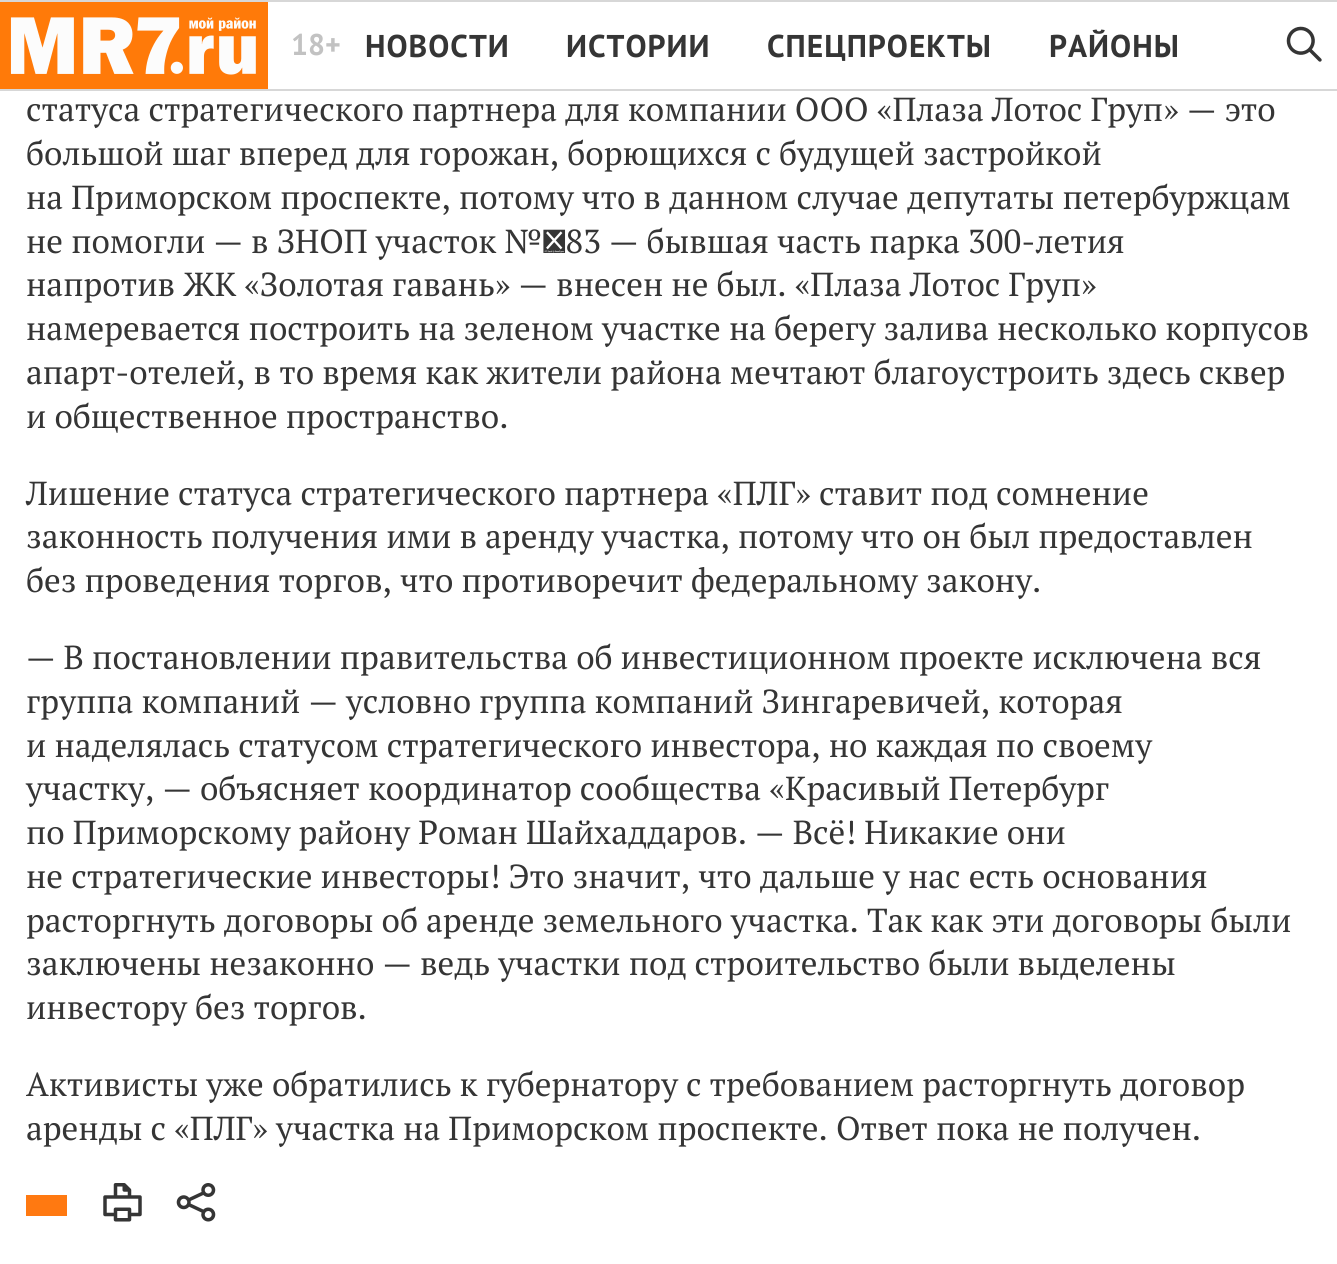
import math
import cairo

surface = cairo.ImageSurface(cairo.FORMAT_RGB24, 1337, 1264)
cr = cairo.Context(surface)
options = cairo.FontOptions()
options.set_hint_metrics(cairo.HINT_METRICS_OFF)
options.set_hint_style(cairo.HINT_STYLE_NONE)
cr.set_font_options(options)
cr.set_miter_limit(4)


def rgb(code):
    cr.set_source_rgb(*(v / 255 for v in bytes.fromhex(code[-6:])))


def tracked(x, y, s, letter, word):
    cr.move_to(x, y)
    for ch in s:
        cr.show_text(ch)
        cr.rel_move_to(letter + word * (ch == ' '), 0)


def image(path, x, y, w, h):
    cr.save()
    cr.set_source_surface(cairo.ImageSurface.create_from_png(path), x, y)
    cr.rectangle(x, y, w, h)
    cr.fill()
    cr.restore()


rgb("#ffffff")
cr.paint()
rgb("#d7d7d7")
cr.rectangle(0, 0, 1337, 2)
cr.fill()
cr.rectangle(0, 89, 1337, 2)
cr.fill()
image("img/1.png", 0, 2, 268, 87)
image("img/2.png", 1286, 26, 36, 36)
rgb("#ff7911")
cr.rectangle(26, 1195, 41, 21)
cr.fill()
image("img/3.png", 103, 1183, 39, 39)
image("img/4.png", 176, 1183, 40, 39)
cr.select_font_face("PT Sans", cairo.FONT_SLANT_NORMAL, cairo.FONT_WEIGHT_BOLD)
cr.set_font_size(30)
rgb("#c2c2c2")
cr.move_to(291, 55)
cr.show_text("18+")
cr.set_font_size(31.5)
rgb("#353535")
for x, y, s in [
    (365, 57, "НОВОСТИ"),
    (566, 57, "ИСТОРИИ"),
    (767, 57, "СПЕЦПРОЕКТЫ"),
    (1049, 57, "РАЙОНЫ"),
]:
    tracked(x, y, s, 1, 0)
cr.select_font_face("PT Serif")
cr.set_font_size(33.25)
for x, y, s in [
    (26, 121, "статуса стратегического партнера для компании ООО «Плаза Лотос Груп» — это"),
    (26, 165, "большой шаг вперед для горожан, борющихся с будущей застройкой"),
    (26, 209, "на Приморском проспекте, потому что в данном случае депутаты петербуржцам"),
    (26, 253, "не помогли — в ЗНОП участок № 83 — бывшая часть парка 300-летия"),
    (26, 296, "напротив ЖК «Золотая гавань» — внесен не был. «Плаза Лотос Груп»"),
    (26, 340, "намеревается построить на зеленом участке на берегу залива несколько корпусов"),
    (26, 384, "апарт-отелей, в то время как жители района мечтают благоустроить здесь сквер"),
    (26, 428, "и общественное пространство."),
    (26, 505, "Лишение статуса стратегического партнера «ПЛГ» ставит под сомнение"),
    (26, 548, "законность получения ими в аренду участка, потому что он был предоставлен"),
    (26, 592, "без проведения торгов, что противоречит федеральному закону."),
    (26, 669, "— В постановлении правительства об инвестиционном проекте исключена вся"),
    (26, 713, "группа компаний — условно группа компаний Зингаревичей, которая"),
    (26, 757, "и наделялась статусом стратегического инвестора, но каждая по своему"),
    (26, 800, "участку, — объясняет координатор сообщества «Красивый Петербург"),
    (26, 844, "по Приморскому району Роман Шайхаддаров. — Всё! Никакие они"),
    (26, 888, "не стратегические инвесторы! Это значит, что дальше у нас есть основания"),
    (26, 932, "расторгнуть договоры об аренде земельного участка. Так как эти договоры были"),
    (26, 975, "заключены незаконно — ведь участки под строительство были выделены"),
    (26, 1019, "инвестору без торгов."),
    (26, 1096, "Активисты уже обратились к губернатору с требованием расторгнуть договор"),
    (26, 1140, "аренды с «ПЛГ» участка на Приморском проспекте. Ответ пока не получен."),
]:
    cr.move_to(x, y)
    cr.show_text(s)
surface.write_to_png("page.png")
